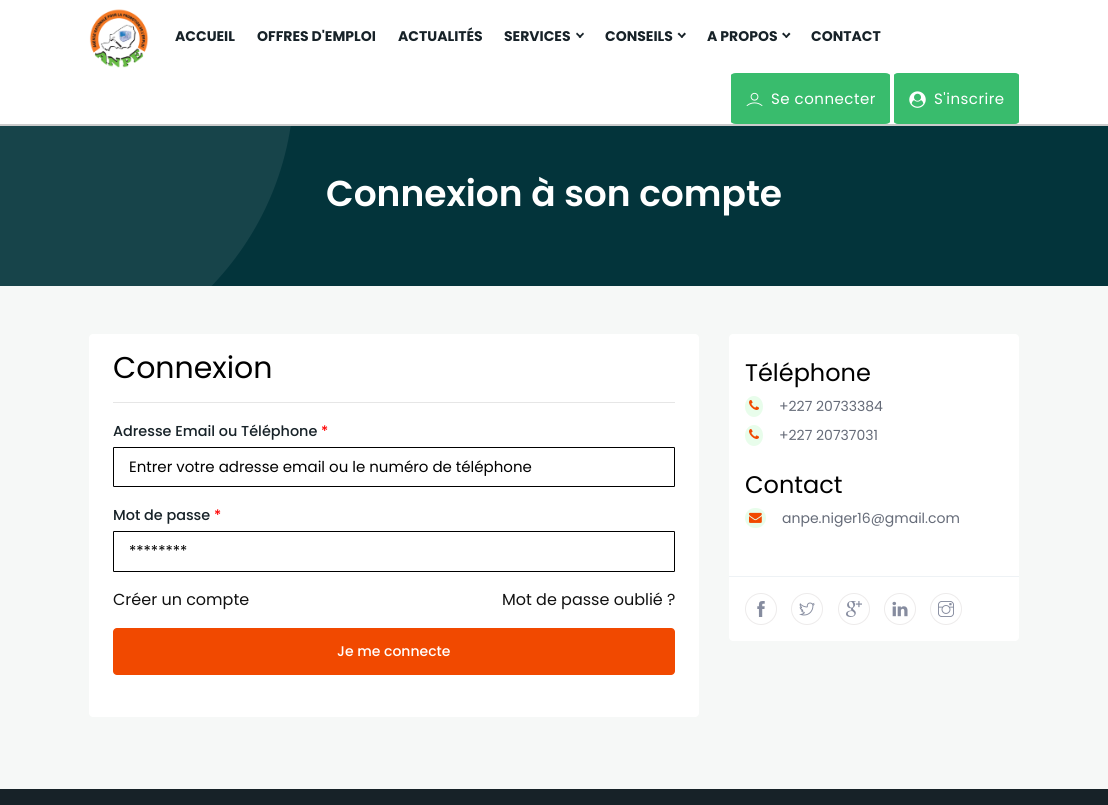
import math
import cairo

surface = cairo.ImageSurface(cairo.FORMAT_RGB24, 1108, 805)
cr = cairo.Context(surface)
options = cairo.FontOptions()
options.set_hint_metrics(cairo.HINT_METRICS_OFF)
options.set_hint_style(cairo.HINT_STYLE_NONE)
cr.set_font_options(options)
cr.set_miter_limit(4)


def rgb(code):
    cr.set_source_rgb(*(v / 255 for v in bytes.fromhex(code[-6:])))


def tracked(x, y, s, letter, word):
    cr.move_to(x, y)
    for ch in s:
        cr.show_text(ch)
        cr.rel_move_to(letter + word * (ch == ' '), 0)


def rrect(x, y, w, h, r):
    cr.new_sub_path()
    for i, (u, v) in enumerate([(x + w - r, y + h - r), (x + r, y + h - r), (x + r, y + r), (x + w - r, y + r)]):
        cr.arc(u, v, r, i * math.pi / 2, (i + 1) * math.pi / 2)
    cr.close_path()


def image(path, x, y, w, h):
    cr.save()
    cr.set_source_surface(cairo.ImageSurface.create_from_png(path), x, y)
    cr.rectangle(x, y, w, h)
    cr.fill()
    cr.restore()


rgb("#ffffff")
cr.paint()
rgb("#cccccc")
cr.rectangle(0, 124, 1108, 2)
cr.fill()
image("img/1.png", 89, 9, 60, 59)
rgb("#172228")
cr.new_path()
cr.move_to(583, 32.5)
cr.line_to(584, 34)
cr.line_to(580, 38)
cr.line_to(578.5, 37)
cr.close_path()
cr.fill()
cr.new_path()
cr.move_to(577, 32.5)
cr.line_to(581.5, 37)
cr.line_to(580, 38)
cr.line_to(576, 34)
cr.close_path()
cr.fill()
cr.new_path()
cr.move_to(684.5, 32.5)
cr.line_to(686, 34)
cr.line_to(682, 38)
cr.line_to(680.5, 37)
cr.close_path()
cr.fill()
cr.new_path()
cr.move_to(679, 32.5)
cr.line_to(683, 37)
cr.line_to(682, 38)
cr.line_to(677.5, 34)
cr.close_path()
cr.fill()
cr.new_path()
cr.move_to(789, 32.5)
cr.line_to(790.5, 34)
cr.line_to(786.5, 38)
cr.line_to(785, 37)
cr.close_path()
cr.fill()
cr.new_path()
cr.move_to(783.5, 32.5)
cr.line_to(787.5, 37)
cr.line_to(786.5, 38)
cr.line_to(782, 34)
cr.close_path()
cr.fill()
rgb("#39bc6d")
cr.new_path()
cr.move_to(739, 73)
cr.line_to(882, 73)
cr.curve_to(886, 73, 890, 74, 890, 76)
cr.line_to(890, 121)
cr.curve_to(890, 123, 886, 124, 882, 124)
cr.line_to(739, 124)
cr.curve_to(735, 124, 731, 123, 731, 121)
cr.line_to(731, 76)
cr.curve_to(731, 74, 735, 73, 739, 73)
cr.close_path()
cr.fill()
cr.new_path()
cr.move_to(739, 74)
cr.line_to(882, 74)
cr.curve_to(886, 74, 889, 74.5, 889, 75.5)
cr.line_to(889, 121.5)
cr.curve_to(889, 122.5, 886, 123, 882, 123)
cr.line_to(739, 123)
cr.curve_to(735, 123, 732, 122.5, 732, 121.5)
cr.line_to(732, 75.5)
cr.curve_to(732, 74.5, 735, 74, 739, 74)
cr.close_path()
cr.stroke()
image("img/2.png", 746, 92, 17, 14)
cr.new_path()
cr.move_to(900, 73)
cr.line_to(1013, 73)
cr.curve_to(1016, 73, 1019, 74, 1019, 76)
cr.line_to(1019, 121)
cr.curve_to(1019, 123, 1016, 124, 1013, 124)
cr.line_to(900, 124)
cr.curve_to(897, 124, 894, 123, 894, 121)
cr.line_to(894, 76)
cr.curve_to(894, 74, 897, 73, 900, 73)
cr.close_path()
cr.fill()
cr.new_path()
cr.move_to(900, 74)
cr.line_to(1013, 74)
cr.curve_to(1015.5, 74, 1018, 74.5, 1018, 75.5)
cr.line_to(1018, 121.5)
cr.curve_to(1018, 122.5, 1015.5, 123, 1013, 123)
cr.line_to(900, 123)
cr.curve_to(897.5, 123, 895, 122.5, 895, 121.5)
cr.line_to(895, 75.5)
cr.curve_to(895, 74.5, 897.5, 74, 900, 74)
cr.close_path()
cr.stroke()
image("img/3.png", 909, 91, 17, 17)
rgb("#03343b")
cr.rectangle(0, 126, 1108, 160)
cr.fill()
image("img/4.png", 0, 126, 291, 160)
rgb("#f6f8f7")
cr.rectangle(0, 286, 1108, 503)
cr.fill()
rgb("#ffffff")
rrect(89, 334, 610, 383, 4)
cr.fill()
rgb("#e6e6e6")
cr.rectangle(113, 402, 562, 1)
cr.fill()
rrect(113.5, 447.5, 561, 39, 0.5)
rgb("#000000")
cr.set_line_width(1)
cr.stroke()
rrect(113.5, 531.5, 561, 40, 0.5)
cr.stroke()
rgb("#f14900")
rrect(113, 628, 562, 47, 4)
cr.fill()
rgb("#ffffff")
rrect(729, 334, 290, 307, 4)
cr.fill()
rgb("#e8fdeb")
cr.new_path()
cr.move_to(754, 396)
cr.curve_to(759, 396, 763, 400.5, 763, 406.5)
cr.curve_to(763, 412.5, 759, 417, 754, 417)
cr.curve_to(749, 417, 745, 412.5, 745, 406.5)
cr.curve_to(745, 400.5, 749, 396, 754, 396)
cr.close_path()
cr.fill()
image("img/5.png", 749, 400, 10, 10)
cr.new_path()
cr.move_to(754, 425)
cr.curve_to(759, 425, 763, 429.5, 763, 435.5)
cr.curve_to(763, 441.5, 759, 446, 754, 446)
cr.curve_to(749, 446, 745, 441.5, 745, 435.5)
cr.curve_to(745, 429.5, 749, 425, 754, 425)
cr.close_path()
cr.fill()
image("img/5.png", 749, 429, 10, 10)
rrect(745, 508, 21, 20, 10)
cr.fill()
image("img/6.png", 749, 512, 13, 11)
rgb("#eef2f5")
cr.rectangle(729, 576, 290, 1)
cr.fill()
cr.arc(761, 609, 15.5, 0, 2 * math.pi)
rgb("#edebeb")
cr.stroke()
image("img/7.png", 757, 601, 8, 16)
cr.arc(807, 609, 15.5, 0, 2 * math.pi)
cr.stroke()
image("img/8.png", 799, 602, 16, 14)
cr.arc(854, 609, 15.5, 0, 2 * math.pi)
cr.stroke()
image("img/9.png", 846, 601, 16, 16)
cr.arc(900, 609, 15.5, 0, 2 * math.pi)
cr.stroke()
image("img/10.png", 892, 601, 16, 16)
cr.arc(946, 609, 15.5, 0, 2 * math.pi)
cr.stroke()
image("img/11.png", 938, 601, 16, 16)
rgb("#172228")
cr.rectangle(0, 789, 1108, 16)
cr.fill()
cr.select_font_face("Poppins", cairo.FONT_SLANT_NORMAL, cairo.FONT_WEIGHT_BOLD)
cr.set_font_size(14)
for x, y, s in [
    (175, 41, "ACCUEIL"),
    (257, 41, "OFFRES D'EMPLOI"),
    (398, 41, "ACTUALITÉS"),
    (504, 41, "SERVICES"),
    (605, 41, "CONSEILS"),
    (707, 41, "A PROPOS"),
    (811, 41, "CONTACT"),
]:
    cr.move_to(x, y)
    cr.show_text(s)
cr.select_font_face("Poppins")
cr.set_font_size(15)
rgb("#ffffff")
tracked(771, 104, "Se connecter", 0.5, 0)
tracked(934, 104, "S'inscrire", 0.5, 0)
cr.select_font_face("Poppins SemiBold")
cr.set_font_size(36)
cr.move_to(326, 206)
cr.show_text("Connexion à son compte")
cr.select_font_face("Poppins")
cr.set_font_size(30)
rgb("#000000")
cr.move_to(113, 378)
cr.show_text("Connexion")
cr.select_font_face("Poppins Medium")
cr.set_font_size(14.4)
rgb("#172228")
cr.move_to(113, 436)
cr.show_text("Adresse Email ou Téléphone")
rgb("#ff0000")
cr.move_to(321, 436)
cr.show_text("*")
cr.select_font_face("Poppins")
cr.set_font_size(15)
rgb("#000000")
cr.move_to(129, 472)
cr.show_text("Entrer votre adresse email ou le numéro de téléphone")
cr.select_font_face("Poppins Medium")
cr.set_font_size(14.4)
rgb("#172228")
cr.move_to(113, 520)
cr.show_text("Mot de passe")
rgb("#ff0000")
cr.move_to(214, 520)
cr.show_text("*")
cr.select_font_face("Poppins")
cr.set_font_size(15)
rgb("#000000")
cr.move_to(129, 556)
cr.show_text("********")
cr.set_font_size(16)
rgb("#111111")
cr.move_to(113, 605)
cr.show_text("Créer un compte")
cr.move_to(502, 605)
cr.show_text("Mot de passe oublié ?")
cr.select_font_face("Poppins Medium")
cr.set_font_size(14)
rgb("#ffffff")
cr.move_to(337, 656)
cr.show_text("Je me connecte")
cr.select_font_face("Poppins")
cr.set_font_size(24)
rgb("#000000")
cr.move_to(745, 381)
cr.show_text("Téléphone")
cr.set_font_size(14)
rgb("#656b78")
cr.move_to(779, 411)
cr.show_text("+227 20733384")
cr.move_to(779, 440)
cr.show_text("+227 20737031")
cr.set_font_size(24)
rgb("#000000")
cr.move_to(745, 493)
cr.show_text("Contact")
cr.set_font_size(14)
rgb("#656b78")
cr.move_to(782, 523)
cr.show_text("anpe.niger16@gmail.com")
surface.write_to_png("page.png")
